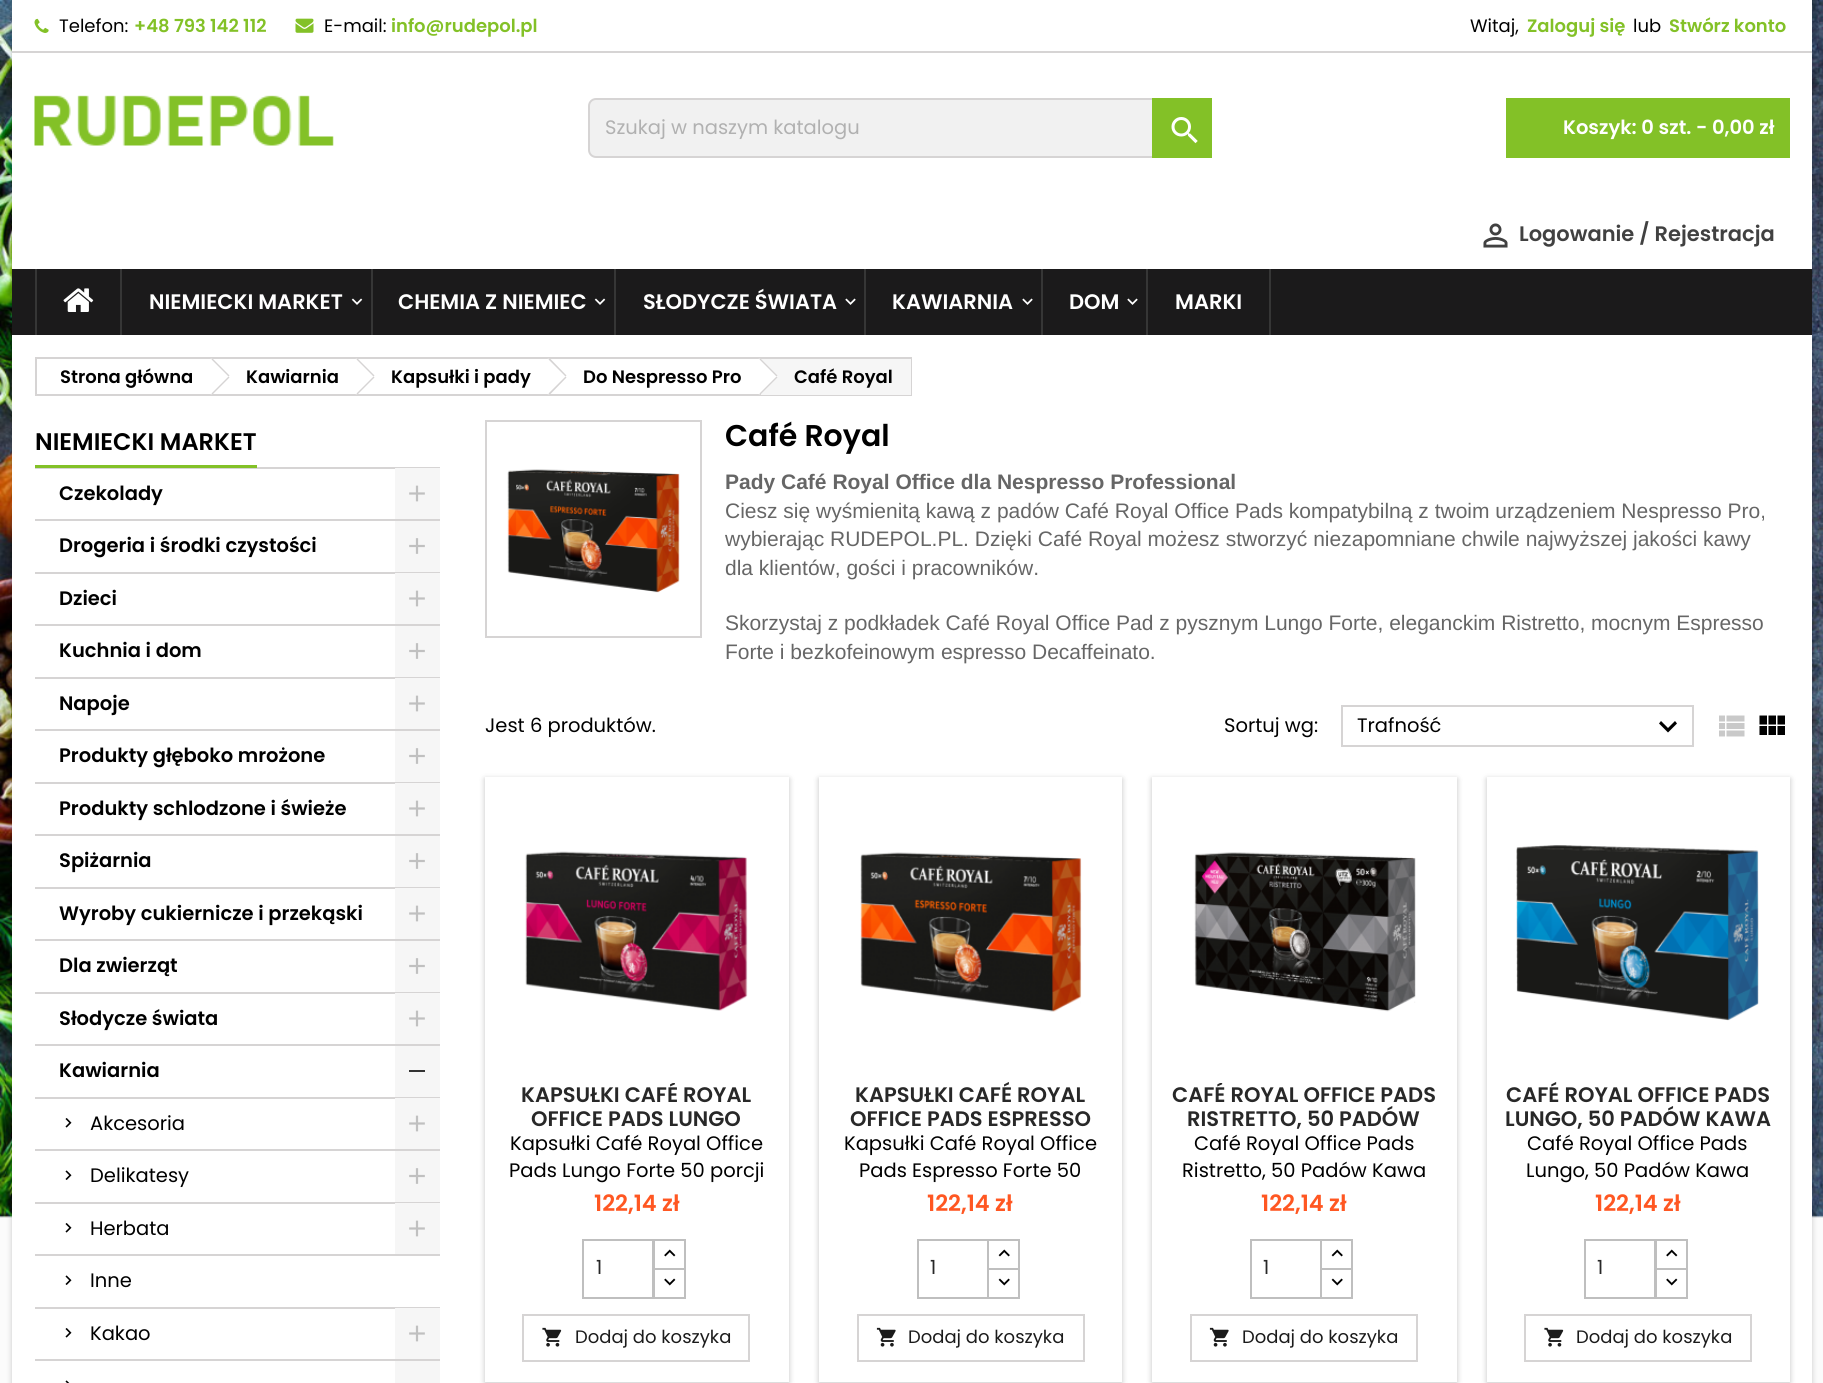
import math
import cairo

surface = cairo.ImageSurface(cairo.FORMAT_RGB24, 1823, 1383)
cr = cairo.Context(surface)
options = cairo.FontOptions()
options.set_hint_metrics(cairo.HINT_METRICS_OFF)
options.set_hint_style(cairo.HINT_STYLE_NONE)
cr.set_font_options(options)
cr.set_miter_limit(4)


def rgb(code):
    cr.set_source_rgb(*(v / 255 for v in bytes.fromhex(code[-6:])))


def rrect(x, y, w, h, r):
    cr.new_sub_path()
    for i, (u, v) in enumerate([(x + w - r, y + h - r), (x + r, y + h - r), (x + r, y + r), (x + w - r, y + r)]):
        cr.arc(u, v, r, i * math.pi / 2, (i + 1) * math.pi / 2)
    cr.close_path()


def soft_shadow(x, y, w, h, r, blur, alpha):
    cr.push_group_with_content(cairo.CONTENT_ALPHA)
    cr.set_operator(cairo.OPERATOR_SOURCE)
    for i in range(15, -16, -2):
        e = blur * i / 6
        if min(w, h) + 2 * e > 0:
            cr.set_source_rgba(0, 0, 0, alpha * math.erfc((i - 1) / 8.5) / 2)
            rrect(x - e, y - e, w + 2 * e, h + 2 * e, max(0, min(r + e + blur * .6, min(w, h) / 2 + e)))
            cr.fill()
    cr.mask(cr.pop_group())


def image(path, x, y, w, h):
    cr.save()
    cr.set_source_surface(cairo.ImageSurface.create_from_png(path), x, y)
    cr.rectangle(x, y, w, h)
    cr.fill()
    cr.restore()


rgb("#fbfbfb")
cr.paint()
image("img/1.png", 0, 0, 1823, 1218)
rgb("#000000")
soft_shadow(12, 0, 1800, 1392, 0, 3, 0.2)
rgb("#ffffff")
cr.rectangle(12, 0, 1800, 1383)
cr.fill()
rgb("#d6d4d4")
cr.rectangle(12, 51, 1800, 2)
cr.fill()
image("img/2.png", 34, 18, 15, 15)
image("img/3.png", 295, 18, 19, 15)
image("img/4.png", 34, 95, 300, 51)
rgb("#f1f1f1")
rrect(589, 99, 622, 58, 7)
cr.fill_preserve()
rgb("#d6d4d4")
cr.stroke()
rgb("#83c127")
cr.rectangle(1152, 98, 60, 60)
cr.fill()
image("img/5.png", 1171, 117, 27, 27)
cr.rectangle(1506, 98, 284, 60)
cr.fill()
image("img/6.png", 1483, 223, 25, 25)
rgb("#1b1a1b")
cr.rectangle(12, 269, 1800, 66)
cr.fill()
rgb("#363636")
cr.rectangle(35, 269, 2, 66)
cr.fill()
image("img/7.png", 63, 288, 31, 24)
cr.rectangle(120, 269, 2, 66)
cr.fill()
image("img/8.png", 351, 298, 12, 7)
cr.rectangle(371, 269, 2, 66)
cr.fill()
image("img/8.png", 594, 298, 12, 7)
cr.rectangle(614, 269, 2, 66)
cr.fill()
image("img/9.png", 845, 298, 11, 7)
cr.rectangle(864, 269, 2, 66)
cr.fill()
image("img/9.png", 1022, 298, 11, 7)
cr.rectangle(1041, 269, 2, 66)
cr.fill()
image("img/9.png", 1127, 298, 11, 7)
cr.rectangle(1269, 269, 2, 66)
cr.fill()
cr.rectangle(1146, 269, 2, 66)
cr.fill()
cr.rectangle(36, 358, 875, 37)
rgb("#d6d4d4")
cr.stroke()
rgb("#ffffff")
cr.new_path()
cr.move_to(213.5, 359.5)
cr.line_to(228.5, 374.5)
cr.curve_to(229.5, 375.5, 229.5, 377.5, 228.5, 378.5)
cr.line_to(213.5, 393.5)
cr.curve_to(212.5, 394.5, 210.5, 394.5, 209, 393.5)
cr.line_to(194.5, 378.5)
cr.curve_to(193, 377.5, 193, 375.5, 194.5, 374.5)
cr.line_to(209, 359.5)
cr.curve_to(210.5, 358.5, 212.5, 358.5, 213.5, 359.5)
cr.close_path()
cr.fill()
rgb("#d6d4d4")
cr.new_path()
cr.move_to(212.5, 358.5)
cr.line_to(229.5, 375.5)
cr.line_to(228.5, 376.5)
cr.line_to(211.5, 359.5)
cr.close_path()
cr.fill()
cr.new_path()
cr.move_to(228.5, 376.5)
cr.line_to(229.5, 377.5)
cr.line_to(212.5, 394.5)
cr.line_to(211.5, 393.5)
cr.close_path()
cr.fill()
rgb("#ffffff")
cr.new_path()
cr.move_to(358.5, 359.5)
cr.line_to(373.5, 374.5)
cr.curve_to(374.5, 375.5, 374.5, 377.5, 373.5, 378.5)
cr.line_to(358.5, 393.5)
cr.curve_to(357.5, 394.5, 355.5, 394.5, 354.5, 393.5)
cr.line_to(339.5, 378.5)
cr.curve_to(338.5, 377.5, 338.5, 375.5, 339.5, 374.5)
cr.line_to(354.5, 359.5)
cr.curve_to(355.5, 358.5, 357.5, 358.5, 358.5, 359.5)
cr.close_path()
cr.fill()
rgb("#d6d4d4")
cr.new_path()
cr.move_to(357.5, 358.5)
cr.line_to(374.5, 375.5)
cr.line_to(373.5, 376.5)
cr.line_to(356.5, 359.5)
cr.close_path()
cr.fill()
cr.new_path()
cr.move_to(373.5, 376.5)
cr.line_to(374.5, 377.5)
cr.line_to(357.5, 394.5)
cr.line_to(356.5, 393.5)
cr.close_path()
cr.fill()
rgb("#f6f6f6")
cr.rectangle(761, 359, 150, 36)
cr.fill()
rgb("#ffffff")
cr.new_path()
cr.move_to(761.5, 359.5)
cr.line_to(776.5, 374.5)
cr.curve_to(777.5, 375.5, 777.5, 377.5, 776.5, 378.5)
cr.line_to(761.5, 393.5)
cr.curve_to(760.5, 394.5, 758.5, 394.5, 757.5, 393.5)
cr.line_to(742.5, 378.5)
cr.curve_to(741.5, 377.5, 741.5, 375.5, 742.5, 374.5)
cr.line_to(757.5, 359.5)
cr.curve_to(758.5, 358.5, 760.5, 358.5, 761.5, 359.5)
cr.close_path()
cr.fill()
rgb("#d6d4d4")
cr.new_path()
cr.move_to(760.5, 358.5)
cr.line_to(777.5, 375.5)
cr.line_to(776.5, 376.5)
cr.line_to(759.5, 359.5)
cr.close_path()
cr.fill()
cr.new_path()
cr.move_to(776.5, 376.5)
cr.line_to(777.5, 377.5)
cr.line_to(760.5, 394.5)
cr.line_to(759.5, 393.5)
cr.close_path()
cr.fill()
for x, y, w, h, color in [
    (35, 467, 405, 2, "#d6d4d4"),
    (35, 465, 222, 3, "#83c127"),
    (35, 519, 405, 2, "#d6d4d4"),
    (395, 468, 45, 51, "#f6f6f6"),
]:
    rgb(color)
    cr.rectangle(x, y, w, h)
    cr.fill()
image("img/10.png", 409, 485, 16, 17)
rgb("#d6d4d4")
cr.rectangle(35, 572, 405, 2)
cr.fill()
rgb("#f6f6f6")
cr.rectangle(395, 521, 45, 51)
cr.fill()
image("img/11.png", 409, 538, 16, 16)
rgb("#d6d4d4")
cr.rectangle(35, 624, 405, 2)
cr.fill()
rgb("#f6f6f6")
cr.rectangle(395, 573, 45, 51)
cr.fill()
image("img/10.png", 409, 590, 16, 17)
rgb("#d6d4d4")
cr.rectangle(35, 677, 405, 2)
cr.fill()
rgb("#f6f6f6")
cr.rectangle(395, 626, 45, 51)
cr.fill()
image("img/11.png", 409, 643, 16, 16)
rgb("#d6d4d4")
cr.rectangle(35, 729, 405, 2)
cr.fill()
rgb("#f6f6f6")
cr.rectangle(395, 678, 45, 51)
cr.fill()
image("img/10.png", 409, 695, 16, 17)
rgb("#d6d4d4")
cr.rectangle(35, 782, 405, 2)
cr.fill()
rgb("#f6f6f6")
cr.rectangle(395, 731, 45, 51)
cr.fill()
image("img/11.png", 409, 748, 16, 16)
rgb("#d6d4d4")
cr.rectangle(35, 834, 405, 2)
cr.fill()
rgb("#f6f6f6")
cr.rectangle(395, 783, 45, 51)
cr.fill()
image("img/10.png", 409, 800, 16, 17)
rgb("#d6d4d4")
cr.rectangle(35, 887, 405, 2)
cr.fill()
rgb("#f6f6f6")
cr.rectangle(395, 836, 45, 51)
cr.fill()
image("img/11.png", 409, 853, 16, 16)
rgb("#d6d4d4")
cr.rectangle(35, 939, 405, 2)
cr.fill()
rgb("#f6f6f6")
cr.rectangle(395, 888, 45, 51)
cr.fill()
image("img/10.png", 409, 905, 16, 17)
rgb("#d6d4d4")
cr.rectangle(35, 992, 405, 2)
cr.fill()
rgb("#f6f6f6")
cr.rectangle(395, 941, 45, 51)
cr.fill()
image("img/11.png", 409, 958, 16, 16)
rgb("#d6d4d4")
cr.rectangle(35, 1044, 405, 2)
cr.fill()
rgb("#f6f6f6")
cr.rectangle(395, 993, 45, 51)
cr.fill()
image("img/10.png", 409, 1010, 16, 17)
for x, y, w, h, color in [
    (35, 1097, 405, 2, "#d6d4d4"),
    (395, 1046, 45, 51, "#f6f6f6"),
    (409, 1070, 16, 2, "#333333"),
    (35, 1149, 405, 2, "#d6d4d4"),
]:
    rgb(color)
    cr.rectangle(x, y, w, h)
    cr.fill()
image("img/12.png", 65, 1118, 7, 10)
rgb("#f6f6f6")
cr.rectangle(395, 1098, 45, 51)
cr.fill()
image("img/10.png", 409, 1115, 16, 17)
rgb("#d6d4d4")
cr.rectangle(35, 1202, 405, 2)
cr.fill()
image("img/13.png", 65, 1170, 7, 10)
rgb("#f6f6f6")
cr.rectangle(395, 1151, 45, 51)
cr.fill()
image("img/11.png", 409, 1168, 16, 16)
rgb("#d6d4d4")
cr.rectangle(35, 1254, 405, 2)
cr.fill()
image("img/12.png", 65, 1223, 7, 10)
rgb("#f6f6f6")
cr.rectangle(395, 1203, 45, 51)
cr.fill()
image("img/10.png", 409, 1220, 16, 17)
rgb("#d6d4d4")
cr.rectangle(35, 1307, 405, 2)
cr.fill()
image("img/13.png", 65, 1275, 7, 10)
cr.rectangle(35, 1359, 405, 2)
cr.fill()
image("img/12.png", 65, 1328, 7, 10)
rgb("#f6f6f6")
cr.rectangle(395, 1308, 45, 51)
cr.fill()
image("img/10.png", 409, 1325, 16, 17)
image("img/14.png", 65, 1380, 5, 3)
cr.rectangle(395, 1361, 45, 22)
cr.fill()
cr.rectangle(486, 421, 215, 216)
rgb("#d6d4d4")
cr.stroke()
image("img/15.png", 507, 469, 173, 124)
cr.rectangle(1342, 706, 351, 40)
cr.stroke()
rgb("#000000")
cr.new_path()
cr.move_to(1661, 721)
cr.line_to(1668, 728)
cr.line_to(1675, 721)
cr.line_to(1677, 723.5)
cr.line_to(1668, 732.5)
cr.line_to(1659, 723.5)
cr.close_path()
cr.fill()
image("img/16.png", 1719, 715, 26, 22)
image("img/17.png", 1759, 715, 26, 20)
rgb("#000000")
soft_shadow(485, 779, 304, 604, 0, 3, 0.24)
rgb("#ffffff")
cr.rectangle(485, 777, 304, 605)
cr.fill()
image("img/18.png", 525, 851, 223, 160)
cr.rectangle(654, 1240, 31, 30)
rgb("#bfbfbf")
cr.stroke()
rgb("#ffffff")
cr.rectangle(655, 1270, 29, 1)
cr.fill()
cr.rectangle(654, 1269, 31, 29)
rgb("#bfbfbf")
cr.stroke()
cr.rectangle(583, 1240, 70, 58)
cr.stroke()
image("img/19.png", 664, 1249, 12, 8)
image("img/20.png", 664, 1278, 12, 8)
cr.rectangle(523, 1315, 226, 46)
rgb("#d6d4d4")
cr.stroke()
image("img/21.png", 542, 1327, 20, 20)
rgb("#000000")
soft_shadow(819, 779, 303, 604, 0, 3, 0.24)
rgb("#ffffff")
cr.rectangle(819, 777, 303, 605)
cr.fill()
image("img/22.png", 860, 852, 222, 160)
cr.rectangle(988, 1240, 31, 30)
rgb("#bfbfbf")
cr.stroke()
rgb("#ffffff")
cr.rectangle(989, 1270, 29, 1)
cr.fill()
cr.rectangle(988, 1269, 31, 29)
rgb("#bfbfbf")
cr.stroke()
cr.rectangle(918, 1240, 70, 58)
cr.stroke()
image("img/23.png", 998, 1249, 12, 8)
image("img/24.png", 998, 1278, 12, 8)
cr.rectangle(858, 1315, 226, 46)
rgb("#d6d4d4")
cr.stroke()
image("img/25.png", 876, 1327, 20, 20)
rgb("#000000")
soft_shadow(1152, 779, 305, 604, 0, 3, 0.24)
rgb("#ffffff")
cr.rectangle(1152, 777, 305, 605)
cr.fill()
image("img/26.png", 1194, 852, 222, 160)
cr.rectangle(1321, 1240, 31, 30)
rgb("#bfbfbf")
cr.stroke()
rgb("#ffffff")
cr.rectangle(1322, 1270, 29, 1)
cr.fill()
cr.rectangle(1321, 1269, 31, 29)
rgb("#bfbfbf")
cr.stroke()
cr.rectangle(1251, 1240, 70, 58)
cr.stroke()
image("img/23.png", 1331, 1249, 12, 8)
image("img/24.png", 1331, 1278, 12, 8)
cr.rectangle(1191, 1315, 226, 46)
rgb("#d6d4d4")
cr.stroke()
image("img/25.png", 1209, 1327, 20, 20)
rgb("#000000")
soft_shadow(1487, 779, 303, 604, 0, 3, 0.24)
rgb("#ffffff")
cr.rectangle(1487, 777, 303, 605)
cr.fill()
image("img/27.png", 1516, 845, 243, 176)
cr.rectangle(1656, 1240, 31, 30)
rgb("#bfbfbf")
cr.stroke()
rgb("#ffffff")
cr.rectangle(1657, 1270, 29, 1)
cr.fill()
cr.rectangle(1656, 1269, 31, 29)
rgb("#bfbfbf")
cr.stroke()
cr.rectangle(1585, 1240, 70, 58)
cr.stroke()
image("img/19.png", 1666, 1249, 12, 8)
image("img/20.png", 1666, 1278, 12, 8)
cr.rectangle(1525, 1315, 226, 46)
rgb("#d6d4d4")
cr.stroke()
image("img/21.png", 1544, 1327, 20, 20)
cr.select_font_face("Poppins")
cr.set_font_size(18)
rgb("#000000")
cr.move_to(59, 32)
cr.show_text("Telefon:")
cr.select_font_face("Poppins SemiBold")
rgb("#83c127")
cr.move_to(134, 32)
cr.show_text("+48 793 142 112")
cr.select_font_face("Poppins")
rgb("#000000")
cr.move_to(324, 32)
cr.show_text("E-mail:")
cr.select_font_face("Poppins SemiBold")
rgb("#83c127")
cr.move_to(391, 32)
cr.show_text("info@rudepol.pl")
cr.select_font_face("Poppins")
rgb("#000000")
cr.move_to(1470, 32)
cr.show_text("Witaj,")
cr.select_font_face("Poppins SemiBold")
rgb("#83c127")
cr.move_to(1527, 32)
cr.show_text("Zaloguj się")
cr.select_font_face("Poppins")
rgb("#000000")
cr.move_to(1633, 32)
cr.show_text("lub")
cr.select_font_face("Poppins SemiBold")
rgb("#83c127")
cr.move_to(1669, 32)
cr.show_text("Stwórz konto")
cr.select_font_face("Poppins")
cr.set_font_size(19.5)
rgb("#b1b1b1")
cr.move_to(605, 134)
cr.show_text("Szukaj w naszym katalogu")
cr.select_font_face("Poppins SemiBold")
rgb("#ffffff")
cr.move_to(1563, 134)
cr.show_text("Koszyk: 0 szt. - 0,00 zł")
cr.set_font_size(21)
rgb("#414141")
cr.move_to(1519, 241)
cr.show_text("Logowanie / Rejestracja")
rgb("#ffffff")
for x, y, s in [
    (149, 309, "NIEMIECKI MARKET"),
    (398, 309, "CHEMIA Z NIEMIEC"),
    (643, 309, "SŁODYCZE ŚWIATA"),
    (892, 309, "KAWIARNIA"),
    (1069, 309, "DOM"),
    (1175, 309, "MARKI"),
]:
    cr.move_to(x, y)
    cr.show_text(s)
cr.set_font_size(18)
rgb("#000000")
for x, y, s in [
    (60, 383, "Strona główna"),
    (246, 383, "Kawiarnia"),
    (391, 383, "Kapsułki i pady"),
]:
    cr.move_to(x, y)
    cr.show_text(s)
rgb("#ffffff")
cr.new_path()
cr.move_to(551, 359.5)
cr.line_to(565.5, 374.5)
cr.curve_to(567, 375.5, 567, 377.5, 565.5, 378.5)
cr.line_to(551, 393.5)
cr.curve_to(549.5, 394.5, 547.5, 394.5, 546.5, 393.5)
cr.line_to(531.5, 378.5)
cr.curve_to(530.5, 377.5, 530.5, 375.5, 531.5, 374.5)
cr.line_to(546.5, 359.5)
cr.curve_to(547.5, 358.5, 549.5, 358.5, 551, 359.5)
cr.close_path()
cr.fill()
rgb("#d6d4d4")
cr.new_path()
cr.move_to(550, 358.5)
cr.line_to(566.5, 375.5)
cr.line_to(565.5, 376.5)
cr.line_to(548.5, 359.5)
cr.close_path()
cr.fill()
cr.new_path()
cr.move_to(565.5, 376.5)
cr.line_to(566.5, 377.5)
cr.line_to(550, 394.5)
cr.line_to(548.5, 393.5)
cr.close_path()
cr.fill()
rgb("#000000")
cr.move_to(583, 383)
cr.show_text("Do Nespresso Pro")
cr.move_to(794, 383)
cr.show_text("Café Royal")
cr.set_font_size(24)
cr.move_to(35, 450)
cr.show_text("NIEMIECKI MARKET")
cr.set_font_size(19.5)
for x, y, s in [
    (59, 500, "Czekolady"),
    (59, 552, "Drogeria i środki czystości"),
    (59, 605, "Dzieci"),
    (59, 657, "Kuchnia i dom"),
    (59, 710, "Napoje"),
    (59, 762, "Produkty głęboko mrożone"),
    (59, 815, "Produkty schlodzone i świeże"),
    (59, 867, "Spiżarnia"),
    (59, 920, "Wyroby cukiernicze i przekąski"),
    (59, 972, "Dla zwierząt"),
    (59, 1025, "Słodycze świata"),
    (59, 1077, "Kawiarnia"),
]:
    cr.move_to(x, y)
    cr.show_text(s)
cr.select_font_face("Poppins")
for x, y, s in [
    (90, 1130, "Akcesoria"),
    (90, 1182, "Delikatesy"),
    (90, 1235, "Herbata"),
    (90, 1287, "Inne"),
    (90, 1340, "Kakao"),
]:
    cr.move_to(x, y)
    cr.show_text(s)
cr.select_font_face("Poppins SemiBold")
cr.set_font_size(30)
cr.move_to(725, 446)
cr.show_text("Café Royal")
cr.select_font_face("Liberation Sans", cairo.FONT_SLANT_NORMAL, cairo.FONT_WEIGHT_BOLD)
cr.set_font_size(21)
rgb("#666666")
cr.move_to(725, 489)
cr.show_text("Pady Café Royal Office dla Nespresso Professional")
cr.select_font_face("Liberation Sans")
for x, y, s in [
    (725, 518, "Ciesz się wyśmienitą kawą z padów Café Royal Office Pads kompatybilną z twoim urządzeniem Nespresso Pro,"),
    (725, 546, "wybierając RUDEPOL.PL. Dzięki Café Royal możesz stworzyć niezapomniane chwile najwyższej jakości kawy"),
    (725, 575, "dla klientów, gości i pracowników."),
    (725, 630, "Skorzystaj z podkładek Café Royal Office Pad z pysznym Lungo Forte, eleganckim Ristretto, mocnym Espresso"),
    (725, 659, "Forte i bezkofeinowym espresso Decaffeinato."),
]:
    cr.move_to(x, y)
    cr.show_text(s)
cr.select_font_face("Poppins")
cr.set_font_size(19.5)
rgb("#000000")
for x, y, s in [
    (485, 732, "Jest 6 produktów."),
    (1224, 732, "Sortuj wg:"),
    (1357, 732, "Trafność"),
]:
    cr.move_to(x, y)
    cr.show_text(s)
cr.save()
cr.rectangle(498, 1083, 278, 48)
cr.clip()
cr.select_font_face("Poppins SemiBold")
cr.set_font_size(21)
rgb("#282828")
cr.move_to(521, 1102)
cr.show_text("KAPSUŁKI CAFÉ ROYAL")
cr.restore()
cr.select_font_face("Poppins SemiBold")
cr.set_font_size(21)
rgb("#282828")
cr.move_to(531, 1126)
cr.show_text("OFFICE PADS LUNGO")
cr.select_font_face("Poppins")
cr.set_font_size(19.5)
rgb("#000000")
cr.move_to(510, 1150)
cr.show_text("Kapsułki Café Royal Office")
cr.move_to(509, 1177)
cr.show_text("Pads Lungo Forte 50 porcji")
cr.select_font_face("Poppins SemiBold")
cr.set_font_size(22.5)
rgb("#ff5722")
cr.move_to(594, 1211)
cr.show_text("122,14 zł")
cr.select_font_face("Poppins")
cr.set_font_size(19.5)
rgb("#282828")
cr.move_to(596, 1274)
cr.show_text("1")
cr.set_font_size(18)
rgb("#1b1b1b")
cr.move_to(575, 1343)
cr.show_text("Dodaj do koszyka")
cr.select_font_face("Poppins SemiBold")
cr.set_font_size(21)
rgb("#282828")
cr.move_to(855, 1102)
cr.show_text("KAPSUŁKI CAFÉ ROYAL")
cr.move_to(850, 1126)
cr.show_text("OFFICE PADS ESPRESSO")
cr.select_font_face("Poppins")
cr.set_font_size(19.5)
rgb("#000000")
cr.move_to(844, 1150)
cr.show_text("Kapsułki Café Royal Office")
cr.move_to(859, 1177)
cr.show_text("Pads Espresso Forte 50")
cr.select_font_face("Poppins SemiBold")
cr.set_font_size(22.5)
rgb("#ff5722")
cr.move_to(927, 1211)
cr.show_text("122,14 zł")
cr.select_font_face("Poppins")
cr.set_font_size(19.5)
rgb("#282828")
cr.move_to(930, 1274)
cr.show_text("1")
cr.set_font_size(18)
rgb("#1b1b1b")
cr.move_to(908, 1343)
cr.show_text("Dodaj do koszyka")
cr.save()
cr.rectangle(1166, 1083, 277, 48)
cr.clip()
cr.select_font_face("Poppins SemiBold")
cr.set_font_size(21)
rgb("#282828")
cr.move_to(1172, 1102)
cr.show_text("CAFÉ ROYAL OFFICE PADS")
cr.restore()
cr.select_font_face("Poppins SemiBold")
cr.set_font_size(21)
rgb("#282828")
cr.move_to(1187, 1126)
cr.show_text("RISTRETTO, 50 PADÓW")
cr.select_font_face("Poppins")
cr.set_font_size(19.5)
rgb("#000000")
cr.move_to(1194, 1150)
cr.show_text("Café Royal Office Pads")
cr.move_to(1182, 1177)
cr.show_text("Ristretto, 50 Padów Kawa")
cr.select_font_face("Poppins SemiBold")
cr.set_font_size(22.5)
rgb("#ff5722")
cr.move_to(1261, 1211)
cr.show_text("122,14 zł")
cr.select_font_face("Poppins")
cr.set_font_size(19.5)
rgb("#282828")
cr.move_to(1263, 1274)
cr.show_text("1")
cr.set_font_size(18)
rgb("#1b1b1b")
cr.move_to(1242, 1343)
cr.show_text("Dodaj do koszyka")
cr.select_font_face("Poppins SemiBold")
cr.set_font_size(21)
rgb("#282828")
cr.move_to(1506, 1102)
cr.show_text("CAFÉ ROYAL OFFICE PADS")
cr.move_to(1505, 1126)
cr.show_text("LUNGO, 50 PADÓW KAWA")
cr.select_font_face("Poppins")
cr.set_font_size(19.5)
rgb("#000000")
cr.move_to(1527, 1150)
cr.show_text("Café Royal Office Pads")
cr.move_to(1526, 1177)
cr.show_text("Lungo, 50 Padów Kawa")
cr.select_font_face("Poppins SemiBold")
cr.set_font_size(22.5)
rgb("#ff5722")
cr.move_to(1595, 1211)
cr.show_text("122,14 zł")
cr.select_font_face("Poppins")
cr.set_font_size(19.5)
rgb("#282828")
cr.move_to(1597, 1274)
cr.show_text("1")
cr.set_font_size(18)
rgb("#1b1b1b")
cr.move_to(1576, 1343)
cr.show_text("Dodaj do koszyka")
surface.write_to_png("page.png")
